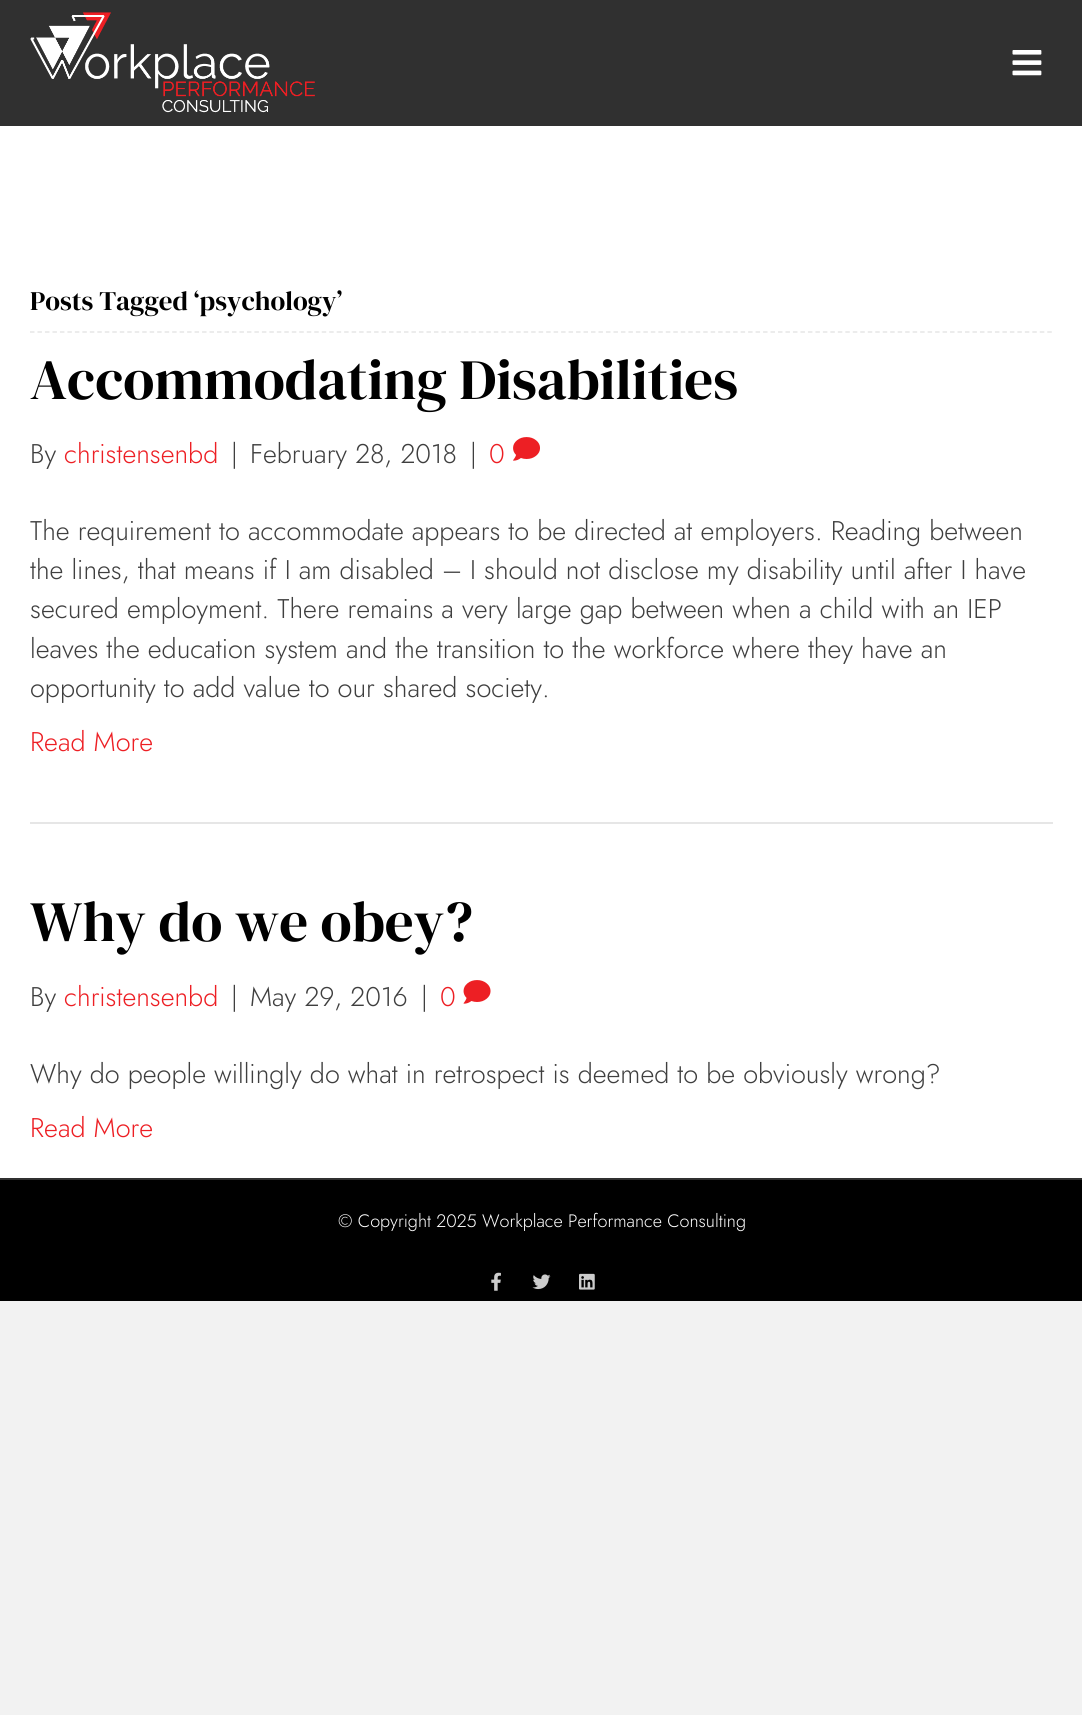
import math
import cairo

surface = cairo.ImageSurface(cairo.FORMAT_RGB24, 1082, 1715)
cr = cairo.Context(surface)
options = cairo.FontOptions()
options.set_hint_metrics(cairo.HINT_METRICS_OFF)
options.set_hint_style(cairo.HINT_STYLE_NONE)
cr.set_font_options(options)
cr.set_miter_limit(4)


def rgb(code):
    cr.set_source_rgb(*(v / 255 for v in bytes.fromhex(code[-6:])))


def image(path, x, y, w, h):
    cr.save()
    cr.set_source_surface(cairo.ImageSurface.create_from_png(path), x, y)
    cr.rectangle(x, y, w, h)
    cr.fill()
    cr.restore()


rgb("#f2f2f2")
cr.paint()
rgb("#303030")
cr.rectangle(0, 0, 1082, 126)
cr.fill()
image("img/1.png", 30, 12, 285, 101)
image("img/2.png", 1012, 50, 30, 26)
rgb("#ffffff")
cr.rectangle(0, 126, 1082, 1052)
cr.fill()
cr.new_path()
cr.move_to(30, 332)
cr.line_to(1053, 332)
rgb("#e6e6e6")
cr.set_line_width(1.5)
cr.set_dash([4.5, 2.98])
cr.stroke()
cr.rectangle(30, 822, 1023, 2)
cr.fill()
image("img/3.png", 513, 437, 27, 24)
image("img/4.png", 463, 980, 28, 24)
rgb("#000000")
cr.rectangle(0, 1180, 1082, 121)
cr.fill()
rgb("#303030")
cr.rectangle(0, 1178, 1082, 2)
cr.fill()
image("img/5.png", 491, 1272, 10, 19)
image("img/6.png", 532, 1274, 19, 16)
image("img/7.png", 579, 1273, 16, 17)
cr.select_font_face("DM Serif Display")
cr.set_font_size(27)
rgb("#000000")
cr.move_to(30, 310)
cr.show_text("Posts Tagged ‘psychology’")
cr.set_font_size(57)
cr.move_to(30, 399)
cr.show_text("Accommodating Disabilities")
cr.select_font_face("Jost Light")
cr.set_font_size(27)
rgb("#3f3f3f")
cr.move_to(30, 463)
cr.show_text("By")
rgb("#ed1f24")
cr.move_to(64, 463)
cr.show_text("christensenbd")
rgb("#3f3f3f")
for x, y, s in [
    (231, 463, "|"),
    (250, 463, "February 28, 2018"),
    (470, 463, "|"),
]:
    cr.move_to(x, y)
    cr.show_text(s)
rgb("#ed1f24")
cr.move_to(489, 463)
cr.show_text("0")
rgb("#3f3f3f")
for x, y, s in [
    (30, 540, "The requirement to accommodate appears to be directed at employers. Reading between"),
    (30, 579, "the lines, that means if I am disabled – I should not disclose my disability until after I have"),
    (30, 618, "secured employment. There remains a very large gap between when a child with an IEP"),
    (30, 658, "leaves the education system and the transition to the workforce where they have an"),
    (30, 697, "opportunity to add value to our shared society."),
]:
    cr.move_to(x, y)
    cr.show_text(s)
rgb("#ed1f24")
cr.move_to(30, 751)
cr.show_text("Read More")
cr.select_font_face("DM Serif Display")
cr.set_font_size(57)
rgb("#000000")
cr.move_to(30, 941)
cr.show_text("Why do we obey?")
cr.select_font_face("Jost Light")
cr.set_font_size(27)
rgb("#3f3f3f")
cr.move_to(30, 1006)
cr.show_text("By")
rgb("#ed1f24")
cr.move_to(64, 1006)
cr.show_text("christensenbd")
rgb("#3f3f3f")
for x, y, s in [
    (231, 1006, "|"),
    (250, 1006, "May 29, 2016"),
    (421, 1006, "|"),
]:
    cr.move_to(x, y)
    cr.show_text(s)
rgb("#ed1f24")
cr.move_to(440, 1006)
cr.show_text("0")
rgb("#3f3f3f")
cr.move_to(30, 1083)
cr.show_text("Why do people willingly do what in retrospect is deemed to be obviously wrong?")
rgb("#ed1f24")
cr.move_to(30, 1137)
cr.show_text("Read More")
cr.set_font_size(18)
rgb("#ffffff")
cr.move_to(338, 1227)
cr.show_text("© Copyright 2025 Workplace Performance Consulting")
surface.write_to_png("page.png")
